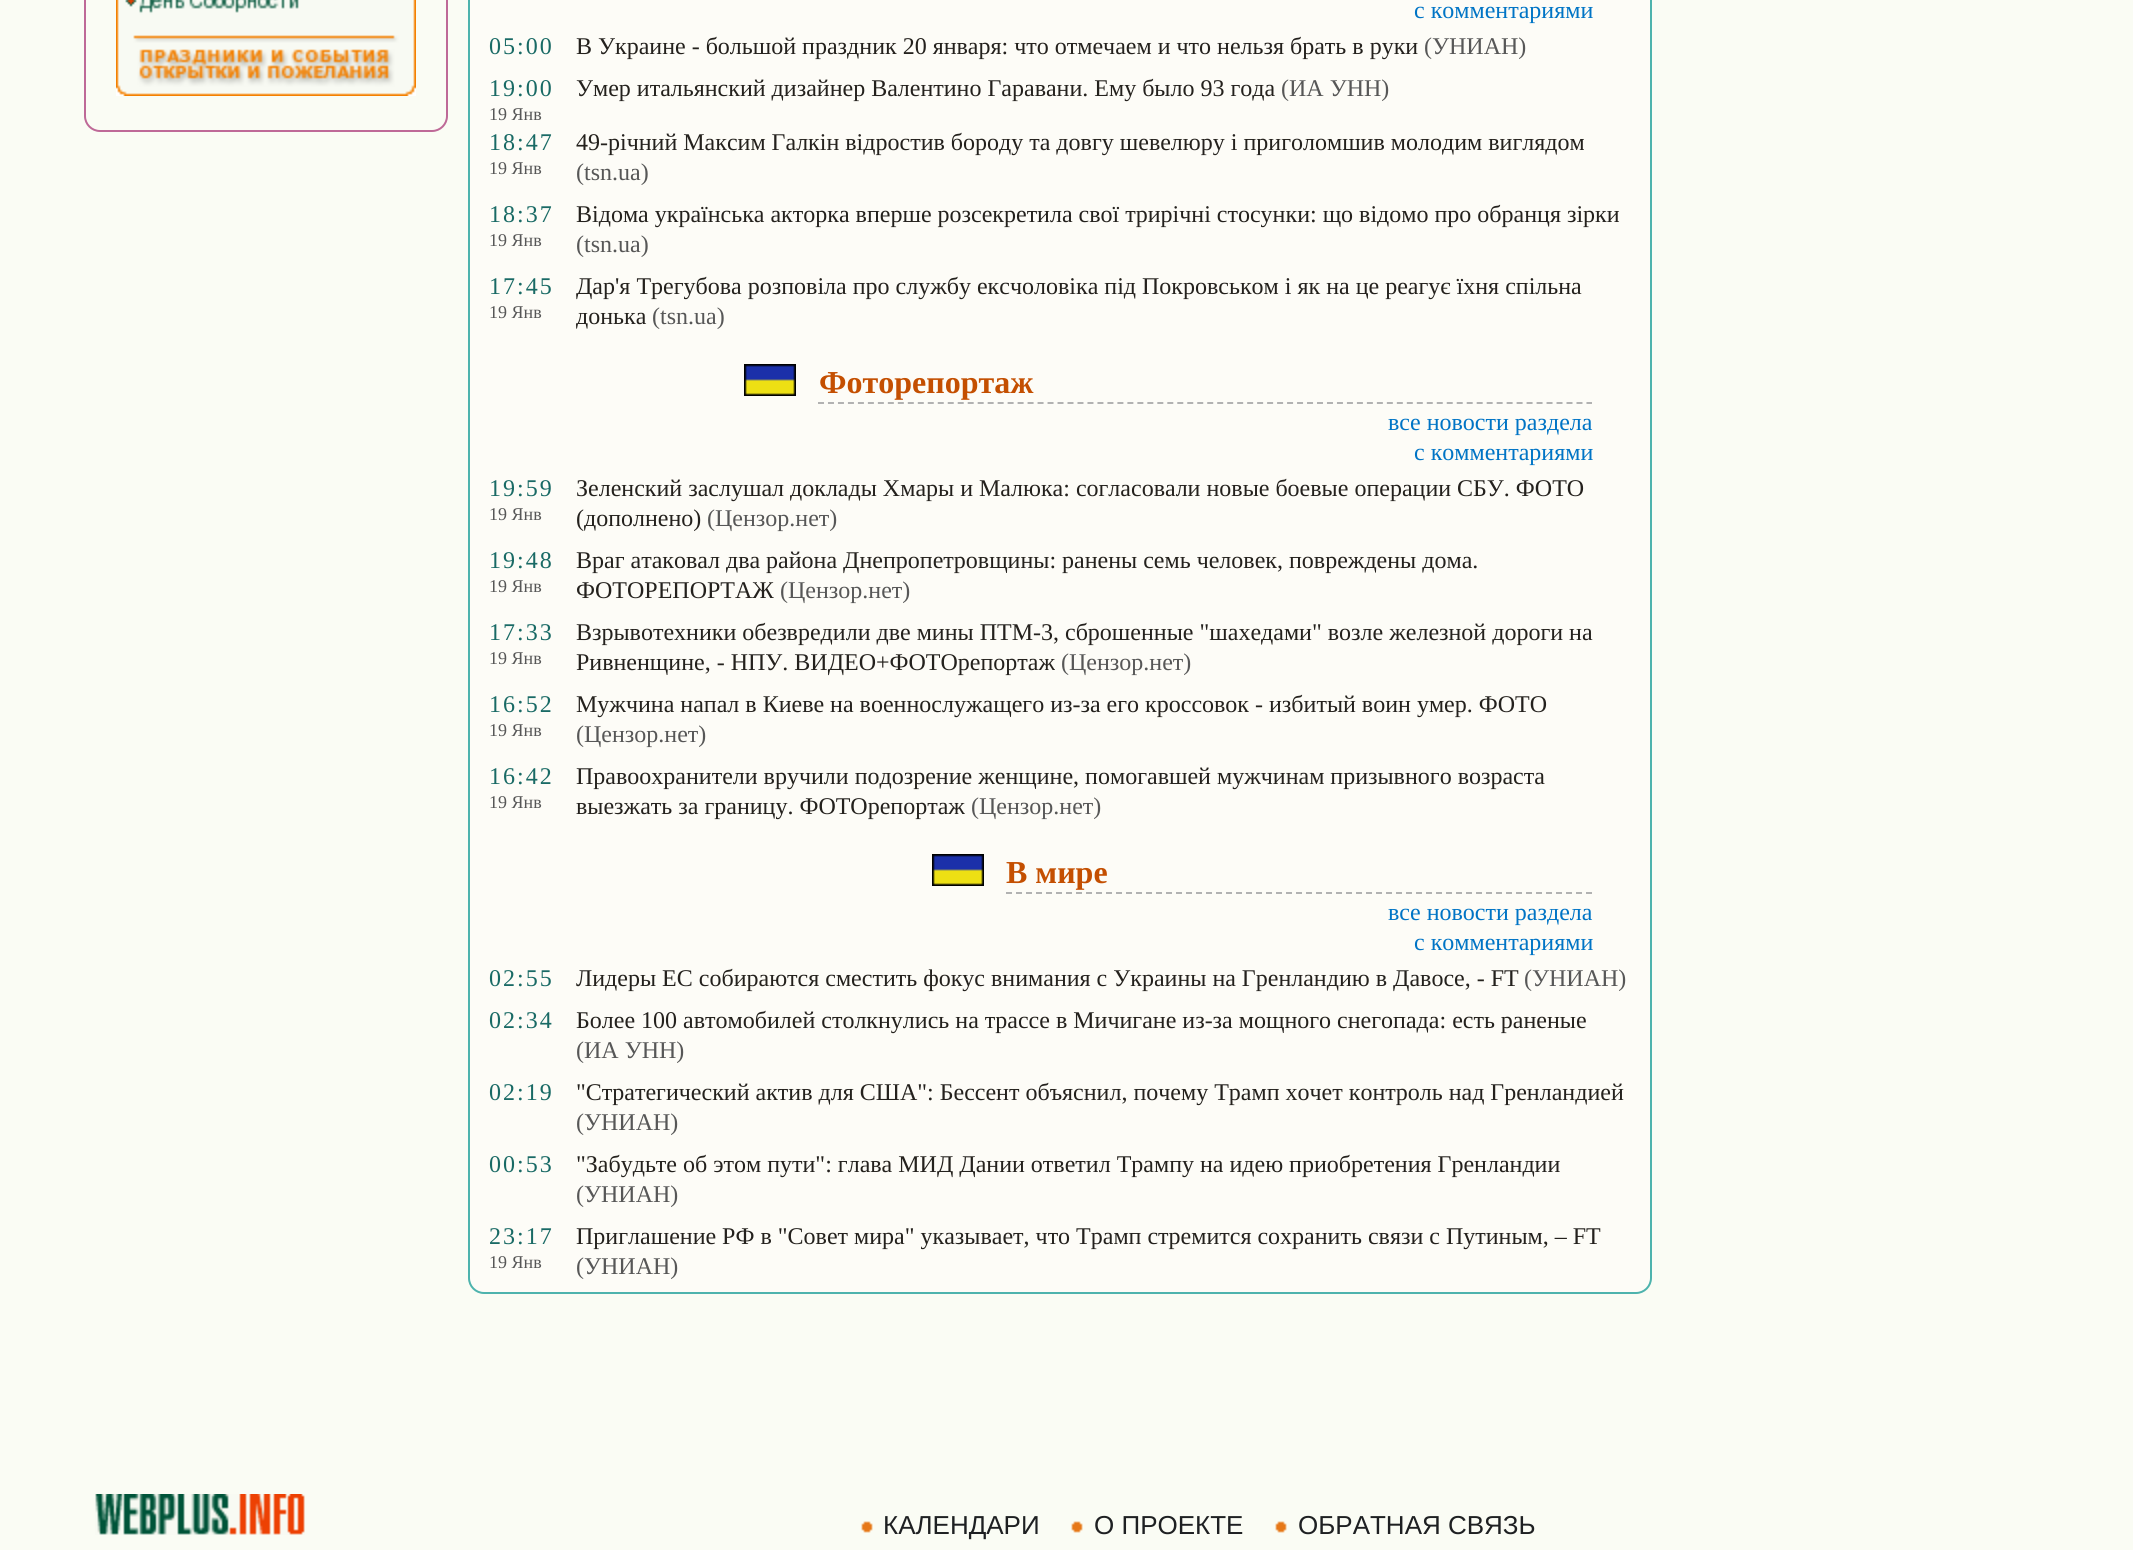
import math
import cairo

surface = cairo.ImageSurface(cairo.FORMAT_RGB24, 2133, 1550)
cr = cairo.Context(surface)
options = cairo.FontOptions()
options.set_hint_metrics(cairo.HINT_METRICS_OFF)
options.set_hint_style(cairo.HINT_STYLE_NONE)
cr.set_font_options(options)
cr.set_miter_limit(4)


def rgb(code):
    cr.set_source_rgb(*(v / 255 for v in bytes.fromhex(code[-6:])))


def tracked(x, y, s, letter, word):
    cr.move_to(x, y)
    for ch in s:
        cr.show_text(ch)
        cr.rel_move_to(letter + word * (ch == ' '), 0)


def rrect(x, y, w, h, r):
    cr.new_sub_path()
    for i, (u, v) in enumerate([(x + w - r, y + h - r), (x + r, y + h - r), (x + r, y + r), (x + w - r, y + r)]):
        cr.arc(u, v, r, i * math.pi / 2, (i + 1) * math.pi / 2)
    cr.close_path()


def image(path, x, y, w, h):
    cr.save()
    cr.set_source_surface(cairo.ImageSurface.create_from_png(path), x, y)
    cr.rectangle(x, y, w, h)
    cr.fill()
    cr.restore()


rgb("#fafcf4")
cr.paint()
rrect(85, -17, 362, 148, 15)
rgb("#be6997")
cr.stroke()
image("img/1.png", 116, 0, 300, 96)
rgb("#fdfcf7")
rrect(469, -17, 1182, 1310, 15)
cr.fill_preserve()
rgb("#4db3ad")
cr.stroke()
image("img/2.png", 744, 364, 52, 32)
cr.new_path()
cr.move_to(818, 403)
cr.line_to(1592, 403)
rgb("#b2b2b2")
cr.set_dash([6, 3.98])
cr.stroke()
image("img/2.png", 932, 854, 52, 32)
cr.new_path()
cr.move_to(1006, 893)
cr.line_to(1592, 893)
cr.set_dash([6, 4])
cr.stroke()
image("img/3.png", 95, 1494, 210, 41)
image("img/4.png", 861, 1521, 12, 12)
image("img/4.png", 1071, 1521, 12, 12)
image("img/4.png", 1275, 1521, 12, 12)
cr.select_font_face("Liberation Serif")
cr.set_font_size(24)
rgb("#0074c5")
cr.move_to(1414, 18)
cr.show_text("с комментариями")
rgb("#196a65")
tracked(489, 54, "05:00", 2, 0)
rgb("#24211d")
cr.move_to(576, 54)
cr.show_text("В Украине - большой праздник 20 января: что отмечаем и что нельзя брать в руки")
rgb("#575757")
cr.move_to(1424, 54)
cr.show_text("(УНИАН)")
rgb("#196a65")
tracked(489, 96, "19:00", 2, 0)
cr.set_font_size(18)
rgb("#575757")
cr.move_to(489, 120)
cr.show_text("19 Янв")
cr.set_font_size(24)
rgb("#24211d")
cr.move_to(576, 96)
cr.show_text("Умер итальянский дизайнер Валентино Гаравани. Ему было 93 года")
rgb("#575757")
cr.move_to(1281, 96)
cr.show_text("(ИА УНН)")
rgb("#196a65")
tracked(489, 150, "18:47", 2, 0)
cr.set_font_size(18)
rgb("#575757")
cr.move_to(489, 174)
cr.show_text("19 Янв")
cr.set_font_size(24)
rgb("#24211d")
cr.move_to(576, 150)
cr.show_text("49-річний Максим Галкін відростив бороду та довгу шевелюру і приголомшив молодим виглядом")
rgb("#575757")
cr.move_to(576, 180)
cr.show_text("(tsn.ua)")
rgb("#196a65")
tracked(489, 222, "18:37", 2, 0)
cr.set_font_size(18)
rgb("#575757")
cr.move_to(489, 246)
cr.show_text("19 Янв")
cr.set_font_size(24)
rgb("#24211d")
cr.move_to(576, 222)
cr.show_text("Відома українська акторка вперше розсекретила свої трирічні стосунки: що відомо про обранця зірки")
rgb("#575757")
cr.move_to(576, 252)
cr.show_text("(tsn.ua)")
rgb("#196a65")
tracked(489, 294, "17:45", 2, 0)
cr.set_font_size(18)
rgb("#575757")
cr.move_to(489, 318)
cr.show_text("19 Янв")
cr.set_font_size(24)
rgb("#24211d")
cr.move_to(576, 294)
cr.show_text("Дар'я Трегубова розповіла про службу ексчоловіка під Покровськом і як на це реагує їхня спільна")
cr.move_to(576, 324)
cr.show_text("донька")
rgb("#575757")
cr.move_to(652, 324)
cr.show_text("(tsn.ua)")
cr.select_font_face("Liberation Serif", cairo.FONT_SLANT_NORMAL, cairo.FONT_WEIGHT_BOLD)
cr.set_font_size(32)
rgb("#c44f01")
cr.move_to(819, 393)
cr.show_text("Фоторепортаж")
cr.select_font_face("Liberation Serif")
cr.set_font_size(24)
rgb("#0074c5")
cr.move_to(1388, 430)
cr.show_text("все новости раздела")
cr.move_to(1414, 460)
cr.show_text("с комментариями")
rgb("#196a65")
tracked(489, 496, "19:59", 2, 0)
cr.set_font_size(18)
rgb("#575757")
cr.move_to(489, 520)
cr.show_text("19 Янв")
cr.set_font_size(24)
rgb("#24211d")
cr.move_to(576, 496)
cr.show_text("Зеленский заслушал доклады Хмары и Малюка: согласовали новые боевые операции СБУ. ФОТО")
cr.move_to(576, 526)
cr.show_text("(дополнено)")
rgb("#575757")
cr.move_to(707, 526)
cr.show_text("(Цензор.нет)")
rgb("#196a65")
tracked(489, 568, "19:48", 2, 0)
cr.set_font_size(18)
rgb("#575757")
cr.move_to(489, 592)
cr.show_text("19 Янв")
cr.set_font_size(24)
rgb("#24211d")
cr.move_to(576, 568)
cr.show_text("Враг атаковал два района Днепропетровщины: ранены семь человек, повреждены дома.")
cr.move_to(576, 598)
cr.show_text("ФОТОРЕПОРТАЖ")
rgb("#575757")
cr.move_to(780, 598)
cr.show_text("(Цензор.нет)")
rgb("#196a65")
tracked(489, 640, "17:33", 2, 0)
cr.set_font_size(18)
rgb("#575757")
cr.move_to(489, 664)
cr.show_text("19 Янв")
cr.set_font_size(24)
rgb("#24211d")
cr.move_to(576, 640)
cr.show_text("Взрывотехники обезвредили две мины ПТМ-3, сброшенные \"шахедами\" возле железной дороги на")
cr.move_to(576, 670)
cr.show_text("Ривненщине, - НПУ. ВИДЕО+ФОТОрепортаж")
rgb("#575757")
cr.move_to(1061, 670)
cr.show_text("(Цензор.нет)")
rgb("#196a65")
tracked(489, 712, "16:52", 2, 0)
cr.set_font_size(18)
rgb("#575757")
cr.move_to(489, 736)
cr.show_text("19 Янв")
cr.set_font_size(24)
rgb("#24211d")
cr.move_to(576, 712)
cr.show_text("Мужчина напал в Киеве на военнослужащего из-за его кроссовок - избитый воин умер. ФОТО")
rgb("#575757")
cr.move_to(576, 742)
cr.show_text("(Цензор.нет)")
rgb("#196a65")
tracked(489, 784, "16:42", 2, 0)
cr.set_font_size(18)
rgb("#575757")
cr.move_to(489, 808)
cr.show_text("19 Янв")
cr.set_font_size(24)
rgb("#24211d")
cr.move_to(576, 784)
cr.show_text("Правоохранители вручили подозрение женщине, помогавшей мужчинам призывного возраста")
cr.move_to(576, 814)
cr.show_text("выезжать за границу. ФОТОрепортаж")
rgb("#575757")
cr.move_to(971, 814)
cr.show_text("(Цензор.нет)")
cr.select_font_face("Liberation Serif", cairo.FONT_SLANT_NORMAL, cairo.FONT_WEIGHT_BOLD)
cr.set_font_size(32)
rgb("#c44f01")
cr.move_to(1006, 883)
cr.show_text("В мире")
cr.select_font_face("Liberation Serif")
cr.set_font_size(24)
rgb("#0074c5")
cr.move_to(1388, 920)
cr.show_text("все новости раздела")
cr.move_to(1414, 950)
cr.show_text("с комментариями")
rgb("#196a65")
tracked(489, 986, "02:55", 2, 0)
rgb("#24211d")
cr.move_to(576, 986)
cr.show_text("Лидеры ЕС собираются сместить фокус внимания с Украины на Гренландию в Давосе, - FT")
rgb("#575757")
cr.move_to(1524, 986)
cr.show_text("(УНИАН)")
rgb("#196a65")
tracked(489, 1028, "02:34", 2, 0)
rgb("#24211d")
cr.move_to(576, 1028)
cr.show_text("Более 100 автомобилей столкнулись на трассе в Мичигане из-за мощного снегопада: есть раненые")
rgb("#575757")
cr.move_to(576, 1058)
cr.show_text("(ИА УНН)")
rgb("#196a65")
tracked(489, 1100, "02:19", 2, 0)
rgb("#24211d")
cr.move_to(576, 1100)
cr.show_text("\"Стратегический актив для США\": Бессент объяснил, почему Трамп хочет контроль над Гренландией")
rgb("#575757")
cr.move_to(576, 1130)
cr.show_text("(УНИАН)")
rgb("#196a65")
tracked(489, 1172, "00:53", 2, 0)
rgb("#24211d")
cr.move_to(576, 1172)
cr.show_text("\"Забудьте об этом пути\": глава МИД Дании ответил Трампу на идею приобретения Гренландии")
rgb("#575757")
cr.move_to(576, 1202)
cr.show_text("(УНИАН)")
rgb("#196a65")
tracked(489, 1244, "23:17", 2, 0)
cr.set_font_size(18)
rgb("#575757")
cr.move_to(489, 1268)
cr.show_text("19 Янв")
cr.set_font_size(24)
rgb("#24211d")
cr.move_to(576, 1244)
cr.show_text("Приглашение РФ в \"Совет мира\" указывает, что Трамп стремится сохранить связи с Путиным, – FT")
rgb("#575757")
cr.move_to(576, 1274)
cr.show_text("(УНИАН)")
cr.select_font_face("Liberation Sans")
cr.set_font_size(26)
rgb("#1e2022")
for x, y, s in [
    (883, 1534, "КАЛЕНДАРИ"),
    (1094, 1534, "О ПРОЕКТЕ"),
    (1298, 1534, "ОБРАТНАЯ СВЯЗЬ"),
]:
    cr.move_to(x, y)
    cr.show_text(s)
surface.write_to_png("page.png")
